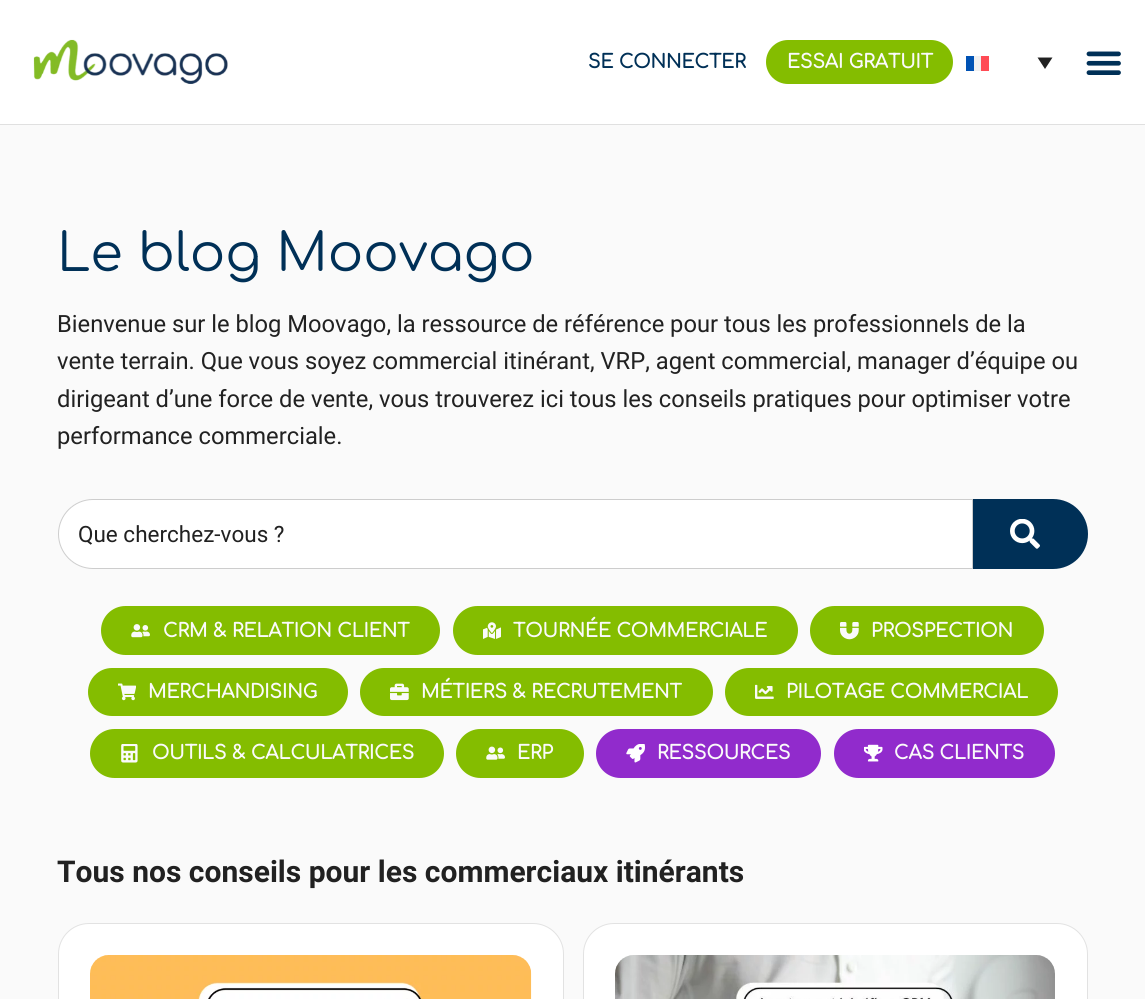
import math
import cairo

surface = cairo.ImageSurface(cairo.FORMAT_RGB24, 1145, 999)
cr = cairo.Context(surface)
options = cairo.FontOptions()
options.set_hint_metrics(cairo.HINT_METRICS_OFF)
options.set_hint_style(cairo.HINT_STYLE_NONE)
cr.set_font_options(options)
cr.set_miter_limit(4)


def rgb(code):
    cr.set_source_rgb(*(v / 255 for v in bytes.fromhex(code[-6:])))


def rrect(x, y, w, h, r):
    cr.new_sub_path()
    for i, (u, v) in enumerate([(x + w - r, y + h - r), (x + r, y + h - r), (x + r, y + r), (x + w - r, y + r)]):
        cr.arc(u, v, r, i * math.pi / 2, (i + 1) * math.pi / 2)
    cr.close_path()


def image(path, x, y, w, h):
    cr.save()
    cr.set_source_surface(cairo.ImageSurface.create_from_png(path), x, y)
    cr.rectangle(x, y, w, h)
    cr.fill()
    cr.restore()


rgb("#ffffff")
cr.paint()
rgb("#e0e0e0")
cr.rectangle(0, 124, 1145, 1)
cr.fill()
image("img/1.png", 33, 39, 195, 45)
rgb("#84bd00")
rrect(766, 40, 187, 44, 22)
cr.fill()
for x, y, w, h, color in [
    (966, 56, 8, 15, "#0052b4"),
    (974, 56, 7, 15, "#f0f0f0"),
    (981, 56, 8, 15, "#ff4b55"),
]:
    rgb(color)
    cr.rectangle(x, y, w, h)
    cr.fill()
rgb("#212121")
cr.new_path()
cr.move_to(1037.5, 57.5)
cr.line_to(1052.5, 57.5)
cr.line_to(1045, 69)
cr.close_path()
cr.fill()
image("img/2.png", 1086, 51, 35, 24)
rgb("#fafafa")
cr.rectangle(0, 125, 1145, 874)
cr.fill()
rgb("#ffffff")
cr.new_path()
cr.move_to(93, 499.5)
cr.line_to(972.5, 499.5)
cr.line_to(972.5, 568.5)
cr.line_to(93, 568.5)
cr.curve_to(74, 568.5, 58.5, 553, 58.5, 534)
cr.curve_to(58.5, 515, 74, 499.5, 93, 499.5)
cr.close_path()
cr.fill_preserve()
rgb("#cdcdcd")
cr.set_line_width(1)
cr.stroke()
rgb("#003057")
cr.new_path()
cr.move_to(973, 499)
cr.line_to(1053, 499)
cr.curve_to(1072.5, 499, 1088, 514.5, 1088, 534)
cr.curve_to(1088, 553.5, 1072.5, 569, 1053, 569)
cr.line_to(973, 569)
cr.close_path()
cr.fill()
image("img/3.png", 1010, 519, 30, 30)
rgb("#84bd00")
rrect(101, 606, 339, 49, 24.5)
cr.fill()
image("img/4.png", 131, 624, 19, 14)
rrect(453, 606, 345, 49, 24.5)
cr.fill()
image("img/5.png", 483, 622, 18, 17)
rrect(810, 606, 234, 49, 24.5)
cr.fill()
image("img/6.png", 840, 622, 19, 18)
rrect(88, 668, 260, 48, 24)
cr.fill()
image("img/7.png", 118, 683, 18, 18)
rrect(360, 668, 353, 48, 24)
cr.fill()
image("img/8.png", 390, 683, 19, 18)
rrect(725, 668, 333, 48, 24)
cr.fill()
image("img/9.png", 755, 684, 19, 15)
rrect(90, 729, 354, 49, 24.5)
cr.fill()
image("img/10.png", 121, 744, 17, 19)
rrect(456, 729, 128, 49, 24.5)
cr.fill()
image("img/11.png", 486, 746, 19, 14)
rgb("#912bcc")
rrect(596, 729, 225, 49, 24.5)
cr.fill()
image("img/12.png", 626, 744, 19, 19)
rrect(834, 729, 221, 49, 24.5)
cr.fill()
image("img/13.png", 864, 744, 19, 18)
rgb("#ffffff")
rrect(58.5, 923.5, 505, 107, 30.5)
cr.fill_preserve()
rgb("#e2e2e2")
cr.stroke()
image("img/14.png", 90, 955, 442, 44)
rgb("#ffffff")
rrect(583.5, 923.5, 504, 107, 30.5)
cr.fill_preserve()
rgb("#e2e2e2")
cr.stroke()
image("img/15.png", 615, 955, 440, 44)
cr.select_font_face("Comfortaa", cairo.FONT_SLANT_NORMAL, cairo.FONT_WEIGHT_BOLD)
cr.set_font_size(18.75)
rgb("#003057")
cr.move_to(588, 68)
cr.show_text("SE CONNECTER")
rgb("#fafafa")
cr.move_to(787, 68)
cr.show_text("ESSAI GRATUIT")
cr.select_font_face("Comfortaa")
cr.set_font_size(52.5)
rgb("#003057")
cr.move_to(57, 271)
cr.show_text("Le blog Moovago")
cr.select_font_face("Roboto")
cr.set_font_size(23.75)
rgb("#212121")
for x, y, s in [
    (57, 332, "Bienvenue sur le blog Moovago, la ressource de référence pour tous les professionnels de la"),
    (57, 369, "vente terrain. Que vous soyez commercial itinérant, VRP, agent commercial, manager d’équipe ou"),
    (57, 407, "dirigeant d’une force de vente, vous trouverez ici tous les conseils pratiques pour optimiser votre"),
    (57, 444, "performance commerciale."),
]:
    cr.move_to(x, y)
    cr.show_text(s)
cr.set_font_size(22.5)
cr.move_to(78, 542)
cr.show_text("Que cherchez-vous ?")
cr.select_font_face("Comfortaa", cairo.FONT_SLANT_NORMAL, cairo.FONT_WEIGHT_BOLD)
cr.set_font_size(18.75)
rgb("#fafafa")
for x, y, s in [
    (163, 637, "CRM & RELATION CLIENT"),
    (513, 637, "TOURNÉE COMMERCIALE"),
    (871, 637, "PROSPECTION"),
    (148, 698, "MERCHANDISING"),
    (421, 698, "MÉTIERS & RECRUTEMENT"),
    (786, 698, "PILOTAGE COMMERCIAL"),
    (152, 759, "OUTILS & CALCULATRICES"),
    (517, 759, "ERP"),
    (657, 759, "RESSOURCES"),
    (894, 759, "CAS CLIENTS"),
]:
    cr.move_to(x, y)
    cr.show_text(s)
cr.select_font_face("Roboto", cairo.FONT_SLANT_NORMAL, cairo.FONT_WEIGHT_BOLD)
cr.set_font_size(30)
rgb("#212121")
cr.move_to(57, 882)
cr.show_text("Tous nos conseils pour les commerciaux itinérants")
surface.write_to_png("page.png")
